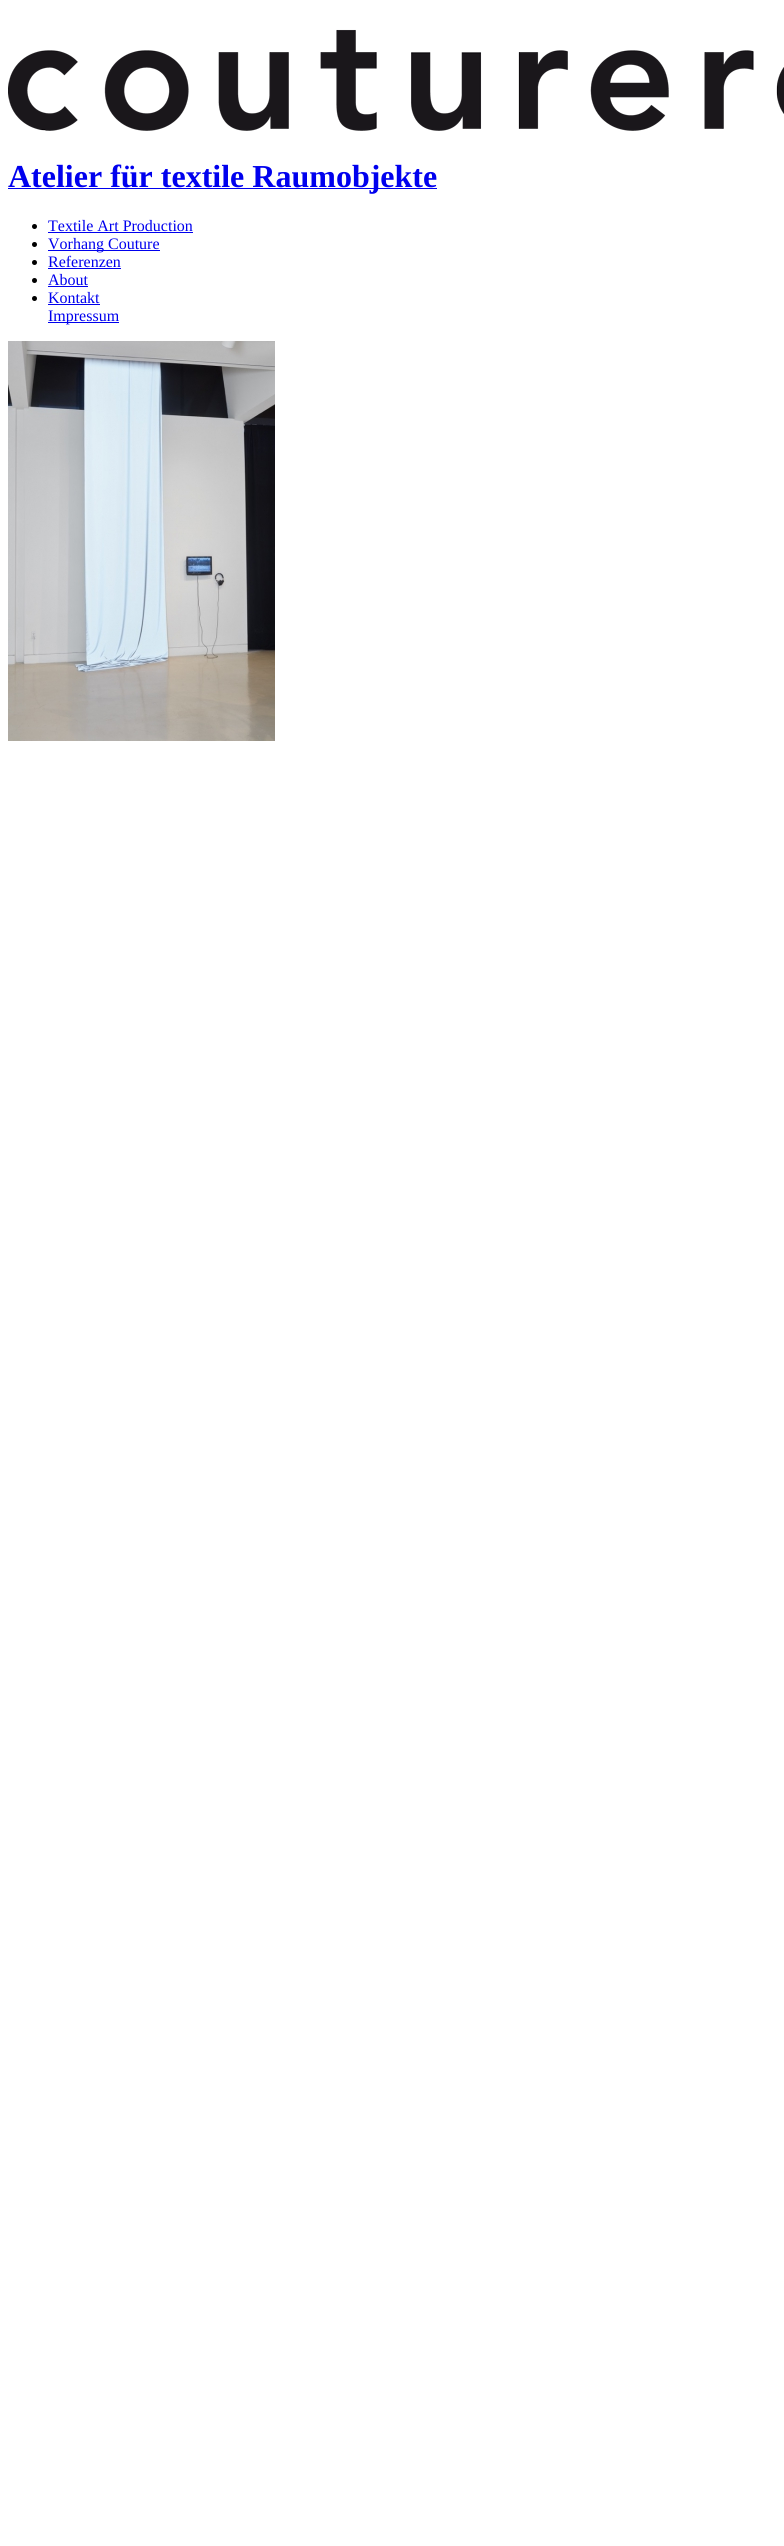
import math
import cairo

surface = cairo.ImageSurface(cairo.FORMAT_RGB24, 784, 2546)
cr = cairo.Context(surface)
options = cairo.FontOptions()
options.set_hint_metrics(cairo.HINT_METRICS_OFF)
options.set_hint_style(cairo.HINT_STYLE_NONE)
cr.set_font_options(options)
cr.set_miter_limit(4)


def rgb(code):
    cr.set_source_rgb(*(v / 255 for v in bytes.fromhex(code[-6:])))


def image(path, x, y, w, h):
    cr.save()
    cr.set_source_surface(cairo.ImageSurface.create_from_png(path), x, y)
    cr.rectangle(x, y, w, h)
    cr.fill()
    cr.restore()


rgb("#ffffff")
cr.paint()
image("img/1.png", 8, 29, 776, 102)
rgb("#0000ee")
cr.rectangle(8, 188, 429, 1)
cr.fill()
rgb("#000000")
cr.arc(34.5, 226.5, 2.5, 0, 2 * math.pi)
cr.fill()
rgb("#0000ee")
cr.rectangle(48, 232, 145, 1)
cr.fill()
rgb("#000000")
cr.arc(34.5, 244.5, 2.5, 0, 2 * math.pi)
cr.fill()
rgb("#0000ee")
cr.rectangle(48, 250, 112, 1)
cr.fill()
rgb("#000000")
cr.arc(34.5, 262.5, 2.5, 0, 2 * math.pi)
cr.fill()
rgb("#0000ee")
cr.rectangle(48, 268, 73, 1)
cr.fill()
rgb("#000000")
cr.arc(34.5, 280.5, 2.5, 0, 2 * math.pi)
cr.fill()
rgb("#0000ee")
cr.rectangle(48, 286, 40, 1)
cr.fill()
rgb("#000000")
cr.arc(34.5, 298.5, 2.5, 0, 2 * math.pi)
cr.fill()
rgb("#0000ee")
cr.rectangle(48, 304, 52, 1)
cr.fill()
cr.rectangle(48, 322, 71, 1)
cr.fill()
image("img/2.png", 8, 341, 267, 400)
cr.select_font_face("Liberation Serif", cairo.FONT_SLANT_NORMAL, cairo.FONT_WEIGHT_BOLD)
cr.set_font_size(32)
cr.move_to(8, 187)
cr.show_text("Atelier für textile Raumobjekte")
cr.select_font_face("Liberation Serif")
cr.set_font_size(16)
for x, y, s in [
    (48, 231, "Textile Art Production"),
    (48, 249, "Vorhang Couture"),
    (48, 267, "Referenzen"),
    (48, 285, "About"),
    (48, 303, "Kontakt"),
    (48, 321, "Impressum"),
]:
    cr.move_to(x, y)
    cr.show_text(s)
surface.write_to_png("page.png")
